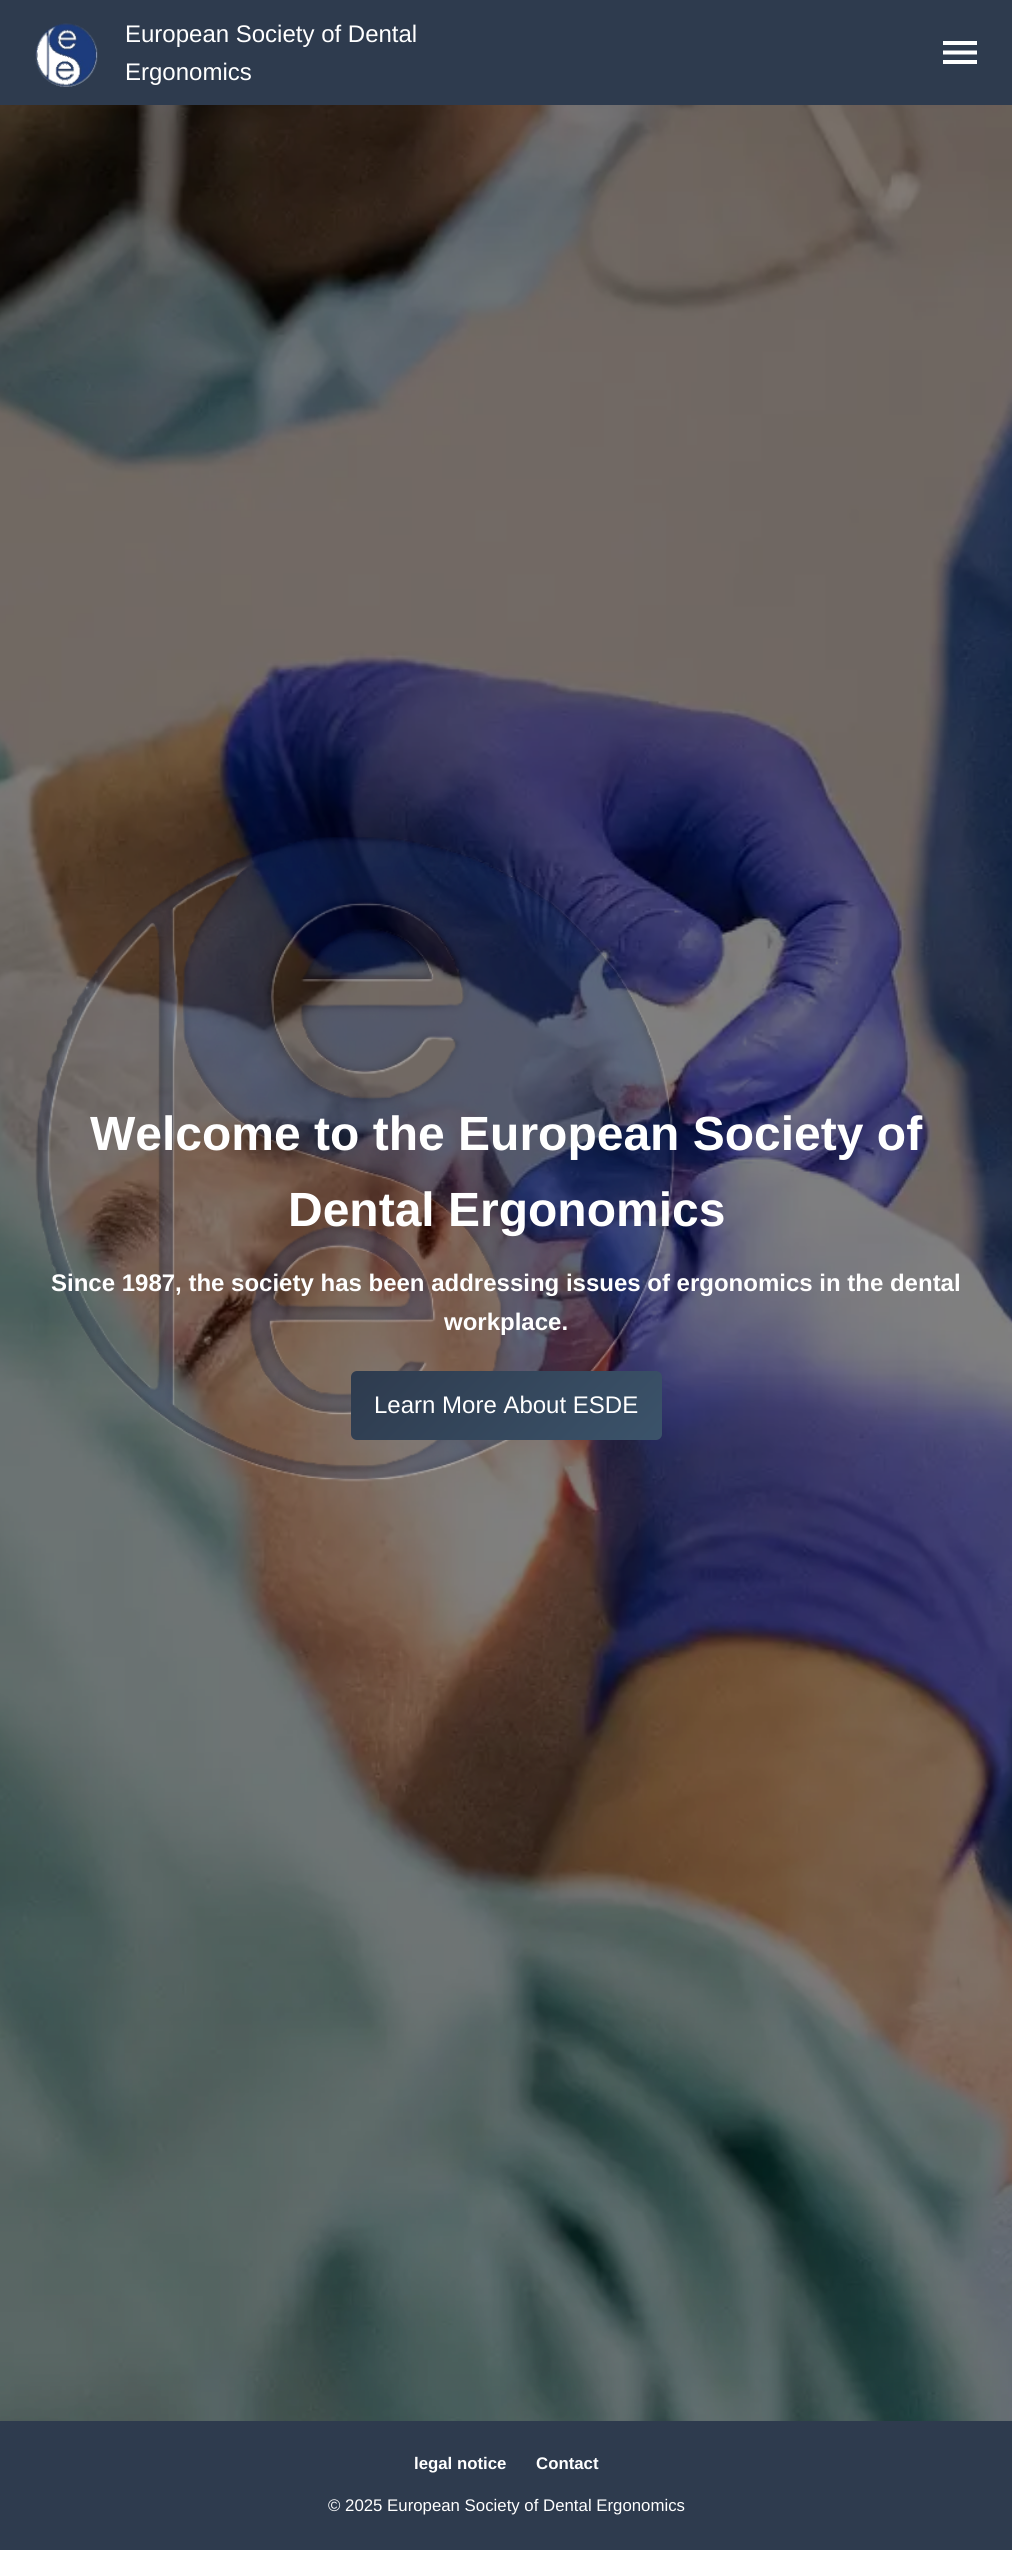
import math
import cairo

surface = cairo.ImageSurface(cairo.FORMAT_RGB24, 1012, 2550)
cr = cairo.Context(surface)
options = cairo.FontOptions()
options.set_hint_metrics(cairo.HINT_METRICS_OFF)
options.set_hint_style(cairo.HINT_STYLE_NONE)
cr.set_font_options(options)
cr.set_miter_limit(4)


def rgb(code):
    cr.set_source_rgb(*(v / 255 for v in bytes.fromhex(code[-6:])))


def rrect(x, y, w, h, r):
    cr.new_sub_path()
    for i, (u, v) in enumerate([(x + w - r, y + h - r), (x + r, y + h - r), (x + r, y + r), (x + w - r, y + r)]):
        cr.arc(u, v, r, i * math.pi / 2, (i + 1) * math.pi / 2)
    cr.close_path()


def image(path, x, y, w, h):
    cr.save()
    cr.set_source_surface(cairo.ImageSurface.create_from_png(path), x, y)
    cr.rectangle(x, y, w, h)
    cr.fill()
    cr.restore()


rgb("#ffffff")
cr.paint()
rgb("#2e3b4e")
cr.rectangle(0, 0, 1012, 105)
cr.fill()
image("img/1.png", 35, 23, 63, 64)
rgb("#ffffff")
cr.new_path()
cr.move_to(943, 64)
cr.line_to(943, 60)
cr.line_to(977, 60)
cr.line_to(977, 64)
cr.close_path()
cr.move_to(943, 54.5)
cr.line_to(943, 50.5)
cr.line_to(977, 50.5)
cr.line_to(977, 54.5)
cr.close_path()
cr.move_to(943, 45)
cr.line_to(943, 41)
cr.line_to(977, 41)
cr.line_to(977, 45)
cr.close_path()
cr.fill()
image("img/3.png", 0, 105, 1012, 2316)
image("img/2.png", 35, 837, 640, 645)
gradient = cairo.LinearGradient(411, 1311, 601, 1500)
gradient.add_color_stop_rgba(0, 0.18, 0.231, 0.306, 1)
gradient.add_color_stop_rgba(1, 0.231, 0.325, 0.416, 1)
cr.set_source(gradient)
rrect(351, 1371, 311, 69, 6)
cr.fill()
rgb("#2e3b4e")
cr.rectangle(0, 2421, 1012, 129)
cr.fill()
cr.select_font_face("Liberation Sans")
cr.set_font_size(24)
rgb("#ffffff")
cr.move_to(125, 42)
cr.show_text("European Society of Dental")
cr.move_to(125, 80)
cr.show_text("Ergonomics")
cr.select_font_face("Liberation Sans", cairo.FONT_SLANT_NORMAL, cairo.FONT_WEIGHT_BOLD)
cr.set_font_size(48)
cr.move_to(90, 1150)
cr.show_text("Welcome to the European Society of")
cr.move_to(288, 1226)
cr.show_text("Dental Ergonomics")
cr.set_font_size(24)
cr.move_to(51, 1291)
cr.show_text("Since 1987, the society has been addressing issues of ergonomics in the dental")
cr.move_to(444, 1330)
cr.show_text("workplace.")
cr.select_font_face("Liberation Sans")
cr.move_to(374, 1413)
cr.show_text("Learn More About ESDE")
cr.select_font_face("Liberation Sans", cairo.FONT_SLANT_NORMAL, cairo.FONT_WEIGHT_BOLD)
cr.set_font_size(16.8)
cr.move_to(414, 2469)
cr.show_text("legal notice")
cr.move_to(536, 2469)
cr.show_text("Contact")
cr.select_font_face("Liberation Sans")
cr.move_to(328, 2511)
cr.show_text("© 2025 European Society of Dental Ergonomics")
surface.write_to_png("page.png")
